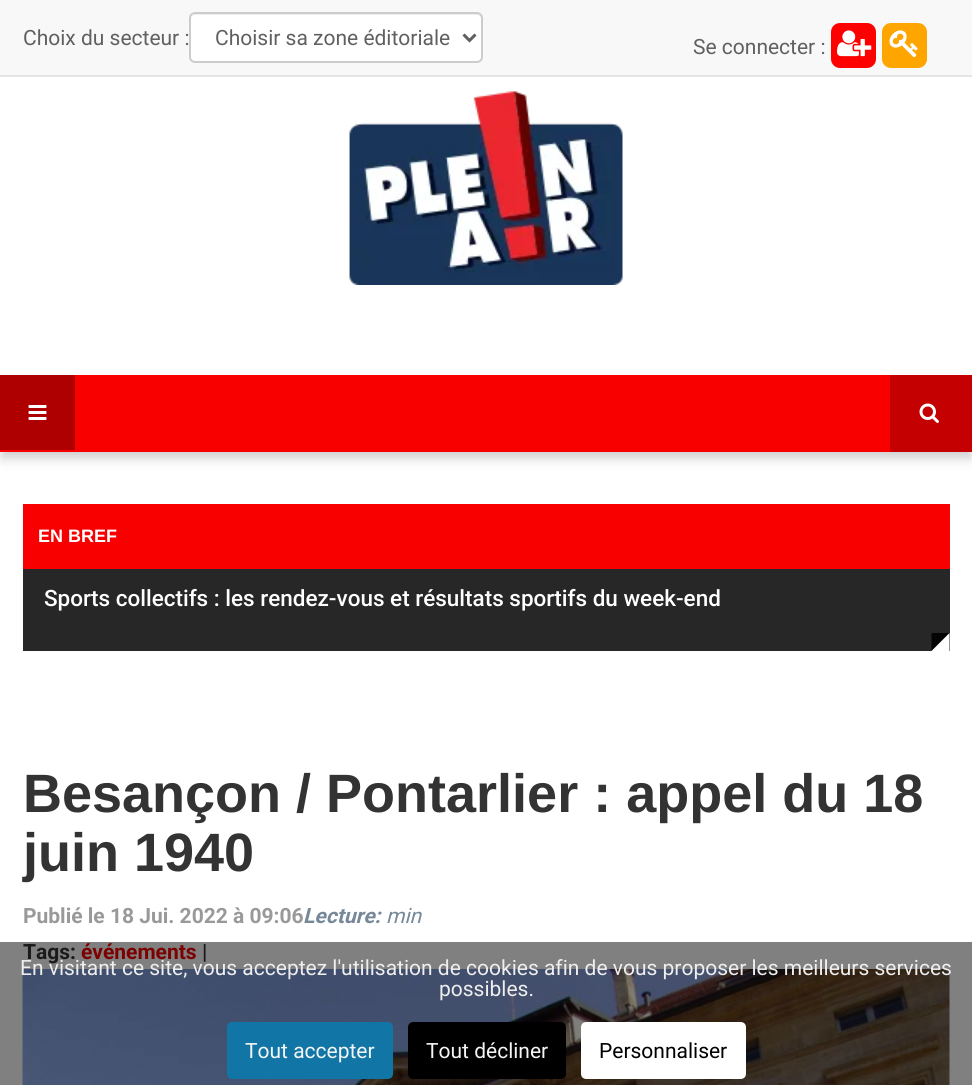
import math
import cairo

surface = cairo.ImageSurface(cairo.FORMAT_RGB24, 972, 1085)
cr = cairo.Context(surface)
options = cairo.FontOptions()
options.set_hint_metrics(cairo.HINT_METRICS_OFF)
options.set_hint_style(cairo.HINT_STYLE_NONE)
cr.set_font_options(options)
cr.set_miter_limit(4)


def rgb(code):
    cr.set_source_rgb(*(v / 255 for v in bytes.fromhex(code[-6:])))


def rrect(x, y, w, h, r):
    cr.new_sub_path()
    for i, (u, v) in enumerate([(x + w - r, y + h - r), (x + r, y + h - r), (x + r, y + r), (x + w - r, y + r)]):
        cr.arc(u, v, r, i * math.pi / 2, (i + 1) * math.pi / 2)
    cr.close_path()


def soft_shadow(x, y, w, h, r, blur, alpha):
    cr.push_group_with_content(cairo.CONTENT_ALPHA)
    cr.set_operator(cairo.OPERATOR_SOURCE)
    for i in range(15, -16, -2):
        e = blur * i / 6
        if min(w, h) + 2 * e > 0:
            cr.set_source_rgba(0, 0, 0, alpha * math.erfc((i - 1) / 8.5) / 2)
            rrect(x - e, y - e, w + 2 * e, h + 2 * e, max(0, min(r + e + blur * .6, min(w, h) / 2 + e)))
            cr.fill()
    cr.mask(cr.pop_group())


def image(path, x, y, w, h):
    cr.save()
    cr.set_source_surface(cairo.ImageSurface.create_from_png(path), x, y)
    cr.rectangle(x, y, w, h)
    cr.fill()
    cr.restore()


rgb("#ffffff")
cr.paint()
for x, y, w, h, color in [
    (0, 942, 972, 143, "#808080"),
    (0, 0, 972, 75, "#f8f8f8"),
    (0, 75, 972, 2, "#e5e5e5"),
]:
    rgb(color)
    cr.rectangle(x, y, w, h)
    cr.fill()
rgb("#ffffff")
rrect(189, 12, 294, 51, 6)
cr.fill()
rgb("#ececec")
cr.new_path()
cr.move_to(195, 15)
cr.line_to(477, 15)
cr.curve_to(479, 15, 482, 17, 482, 20)
cr.curve_to(482, 17, 480, 14, 477, 14)
cr.line_to(195, 14)
cr.curve_to(194, 14, 193, 15, 192, 16)
cr.close_path()
cr.fill()
rrect(190, 13, 292, 49, 5)
rgb("#cccccc")
cr.stroke()
cr.new_path()
cr.move_to(463.5, 34.5)
cr.line_to(469.5, 40.5)
cr.line_to(475.5, 34.5)
rgb("#606060")
cr.set_line_width(3)
cr.stroke()
rgb("#ff0000")
rrect(831, 23, 45, 45, 9)
cr.fill()
image("img/1.png", 837, 30, 35, 27)
rgb("#ffa500")
rrect(882, 23, 45, 45, 9)
cr.fill()
image("img/2.png", 889, 30, 29, 28)
image("img/3.png", 349, 91, 274, 194)
rgb("#000000")
soft_shadow(2, 384, 969, 74, 0, 6, 0.2)
rgb("#f80000")
cr.rectangle(0, 375, 890, 77)
cr.fill()
rgb("#ae0000")
cr.rectangle(0, 375, 75, 75)
cr.fill()
image("img/4.png", 28, 405, 19, 15)
rgb("#c50000")
cr.rectangle(890, 375, 82, 77)
cr.fill()
image("img/5.png", 919, 403, 20, 20)
rgb("#272727")
cr.rectangle(23, 569, 927, 82)
cr.fill()
rgb("#f80000")
cr.rectangle(23, 504, 927, 65)
cr.fill()
rgb("#040404")
cr.new_path()
cr.move_to(931.5, 633)
cr.line_to(949.5, 633)
cr.line_to(931.5, 651)
cr.close_path()
cr.fill()
rgb("#ffffff")
cr.new_path()
cr.move_to(949.5, 633)
cr.line_to(949.5, 651)
cr.line_to(931.5, 651)
cr.close_path()
cr.fill()
image("img/6.png", 22, 969, 928, 116)
rgb("#1176a6")
rrect(228.5, 1023.5, 163, 54, 3.5)
cr.fill_preserve()
cr.stroke()
rgb("#000000")
rrect(409.5, 1023.5, 155, 54, 3.5)
cr.fill_preserve()
cr.stroke()
rgb("#ffffff")
rrect(582.5, 1023.5, 162, 54, 3.5)
cr.fill_preserve()
cr.stroke()
cr.select_font_face("Roboto")
cr.set_font_size(21)
rgb("#606060")
for x, y, s in [
    (23, 45, "Choix du secteur :"),
    (215, 45, "Choisir sa zone éditoriale"),
    (693, 54, "Se connecter :"),
]:
    cr.move_to(x, y)
    cr.show_text(s)
cr.select_font_face("Liberation Sans", cairo.FONT_SLANT_NORMAL, cairo.FONT_WEIGHT_BOLD)
cr.set_font_size(18)
rgb("#ffffff")
cr.move_to(38, 542)
cr.show_text("EN BREF")
cr.select_font_face("Roboto Medium")
cr.set_font_size(22.5)
cr.move_to(44, 606)
cr.show_text("Sports collectifs : les rendez-vous et résultats sportifs du week-end")
cr.select_font_face("Liberation Sans", cairo.FONT_SLANT_NORMAL, cairo.FONT_WEIGHT_BOLD)
cr.set_font_size(54)
rgb("#333333")
cr.move_to(23, 812)
cr.show_text("Besançon / Pontarlier : appel du 18")
cr.move_to(23, 871)
cr.show_text("juin 1940")
cr.select_font_face("Roboto", cairo.FONT_SLANT_NORMAL, cairo.FONT_WEIGHT_BOLD)
cr.set_font_size(21)
rgb("#999999")
cr.move_to(23, 923)
cr.show_text("Publié le 18 Jui. 2022 à 09:06")
rgb("#1a1a1a")
cr.move_to(23, 959)
cr.show_text("Tags:")
rgb("#7c0000")
cr.move_to(81, 959)
cr.show_text("événements")
rgb("#1a1a1a")
cr.move_to(202, 959)
cr.show_text("|")
cr.select_font_face("Roboto", cairo.FONT_SLANT_ITALIC, cairo.FONT_WEIGHT_BOLD)
rgb("#778899")
cr.move_to(303, 923)
cr.show_text("Lecture:")
cr.select_font_face("Roboto", cairo.FONT_SLANT_ITALIC)
cr.move_to(386, 923)
cr.show_text("min")
cr.select_font_face("Roboto")
rgb("#eeeeee")
cr.move_to(20, 975)
cr.show_text("En visitant ce site, vous acceptez l'utilisation de cookies afin de vous proposer les meilleurs services")
cr.move_to(439, 996)
cr.show_text("possibles.")
rgb("#f5f5f5")
cr.move_to(245, 1058)
cr.show_text("Tout accepter")
cr.move_to(426, 1058)
cr.show_text("Tout décliner")
rgb("#000000")
cr.move_to(599, 1058)
cr.show_text("Personnaliser")
surface.write_to_png("page.png")
